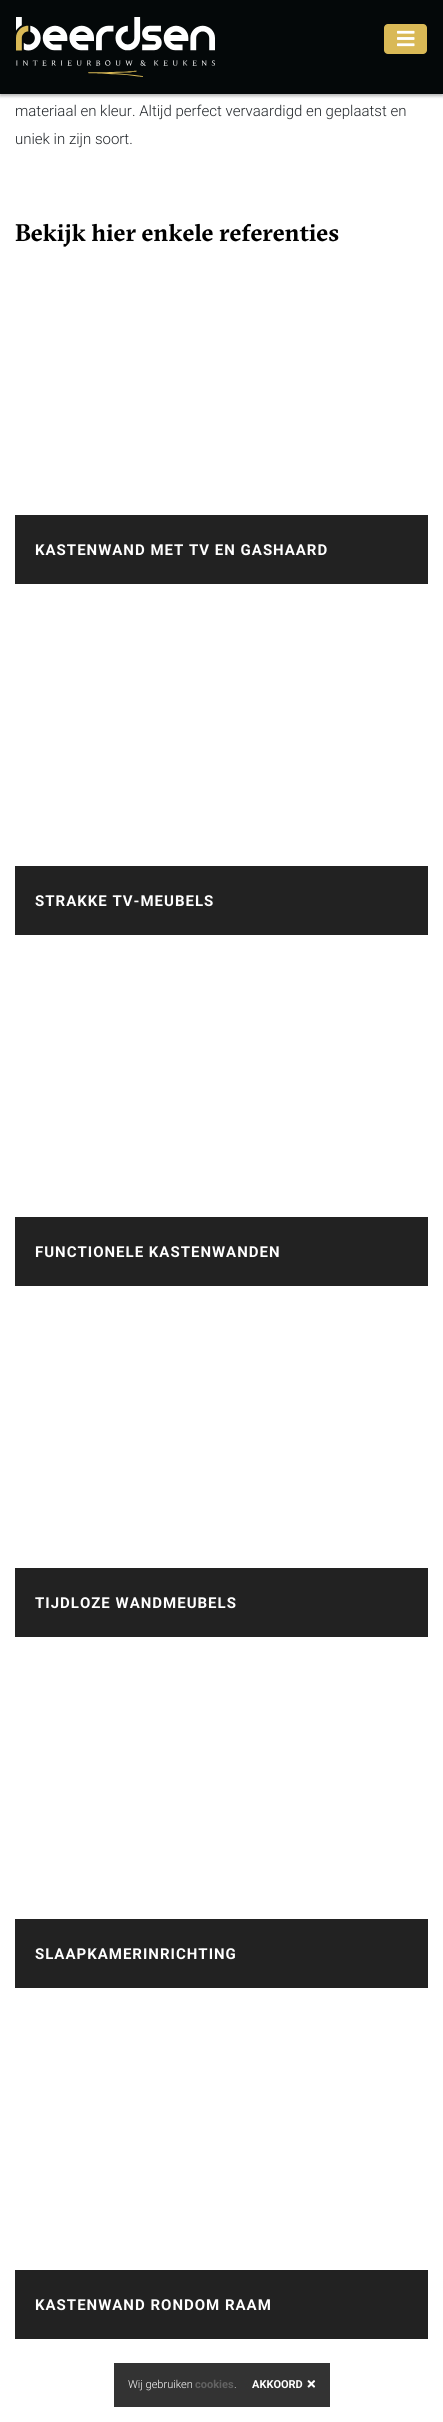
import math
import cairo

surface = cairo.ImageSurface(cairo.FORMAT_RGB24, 443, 2422)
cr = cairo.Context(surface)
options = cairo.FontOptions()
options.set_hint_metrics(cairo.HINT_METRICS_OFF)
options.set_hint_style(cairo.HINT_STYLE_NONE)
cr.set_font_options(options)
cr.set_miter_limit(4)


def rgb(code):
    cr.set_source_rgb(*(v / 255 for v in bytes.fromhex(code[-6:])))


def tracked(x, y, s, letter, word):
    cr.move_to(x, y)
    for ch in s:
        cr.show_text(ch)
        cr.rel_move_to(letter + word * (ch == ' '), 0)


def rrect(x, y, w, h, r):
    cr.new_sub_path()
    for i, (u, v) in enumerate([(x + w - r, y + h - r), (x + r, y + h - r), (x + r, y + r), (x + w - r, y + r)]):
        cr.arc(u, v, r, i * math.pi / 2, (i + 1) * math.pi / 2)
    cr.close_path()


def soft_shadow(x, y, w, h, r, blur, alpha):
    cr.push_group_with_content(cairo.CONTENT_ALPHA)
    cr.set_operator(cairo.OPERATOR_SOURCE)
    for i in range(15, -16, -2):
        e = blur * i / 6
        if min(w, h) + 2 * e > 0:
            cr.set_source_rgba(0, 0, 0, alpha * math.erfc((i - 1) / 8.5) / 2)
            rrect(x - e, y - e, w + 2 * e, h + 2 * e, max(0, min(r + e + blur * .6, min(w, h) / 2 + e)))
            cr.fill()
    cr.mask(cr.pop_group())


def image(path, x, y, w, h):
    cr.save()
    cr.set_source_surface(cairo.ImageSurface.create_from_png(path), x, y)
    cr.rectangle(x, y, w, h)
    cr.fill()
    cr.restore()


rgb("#ffffff")
cr.paint()
rgb("#000000")
soft_shadow(0, 2, 443, 94, 0, 1.5, 0.2)
soft_shadow(0, 2, 443, 94, 0, 2, 0.12)
rgb("#040809")
cr.rectangle(0, 0, 443, 94)
cr.fill()
image("img/1.png", 16, 17, 199, 60)
rgb("#d9b956")
rrect(384, 24, 43, 30, 4)
cr.fill()
image("img/2.png", 397, 30, 18, 17)
for x, y, w, h, color in [
    (15, 515, 413, 69, "#222222"),
    (15, 866, 413, 69, "#222222"),
    (15, 1217, 413, 69, "#222222"),
    (15, 1568, 413, 69, "#222222"),
    (15, 1919, 413, 69, "#222222"),
    (15, 2270, 413, 69, "#222222"),
    (114, 2363, 216, 44, "#333333"),
]:
    rgb(color)
    cr.rectangle(x, y, w, h)
    cr.fill()
image("img/3.png", 307, 2380, 9, 8)
cr.select_font_face("Roboto Light")
cr.set_font_size(15)
rgb("#212529")
cr.move_to(15, 116)
cr.show_text("materiaal en kleur. Altijd perfect vervaardigd en geplaatst en")
cr.move_to(15, 144)
cr.show_text("uniek in zijn soort.")
cr.select_font_face("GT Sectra", cairo.FONT_SLANT_NORMAL, cairo.FONT_WEIGHT_BOLD)
cr.set_font_size(24)
rgb("#000000")
cr.move_to(15, 241)
cr.show_text("Bekijk hier enkele referenties")
cr.select_font_face("Roboto", cairo.FONT_SLANT_NORMAL, cairo.FONT_WEIGHT_BOLD)
cr.set_font_size(15)
rgb("#ffffff")
for x, y, s in [
    (35, 555, "KASTENWAND MET TV EN GASHAARD"),
    (35, 906, "STRAKKE TV-MEUBELS"),
    (35, 1257, "FUNCTIONELE KASTENWANDEN"),
    (35, 1608, "TIJDLOZE WANDMEUBELS"),
    (35, 1959, "SLAAPKAMERINRICHTING"),
    (35, 2310, "KASTENWAND RONDOM RAAM"),
]:
    tracked(x, y, s, 1, 0)
cr.select_font_face("Roboto Light")
cr.set_font_size(11)
cr.move_to(128, 2388)
cr.show_text("Wij gebruiken")
cr.select_font_face("Roboto", cairo.FONT_SLANT_NORMAL, cairo.FONT_WEIGHT_BOLD)
rgb("#626262")
cr.move_to(195, 2388)
cr.show_text("cookies")
cr.select_font_face("Roboto Light")
rgb("#ffffff")
cr.move_to(234, 2388)
cr.show_text(".")
cr.select_font_face("Roboto", cairo.FONT_SLANT_NORMAL, cairo.FONT_WEIGHT_BOLD)
cr.move_to(252, 2388)
cr.show_text("AKKOORD")
surface.write_to_png("page.png")
